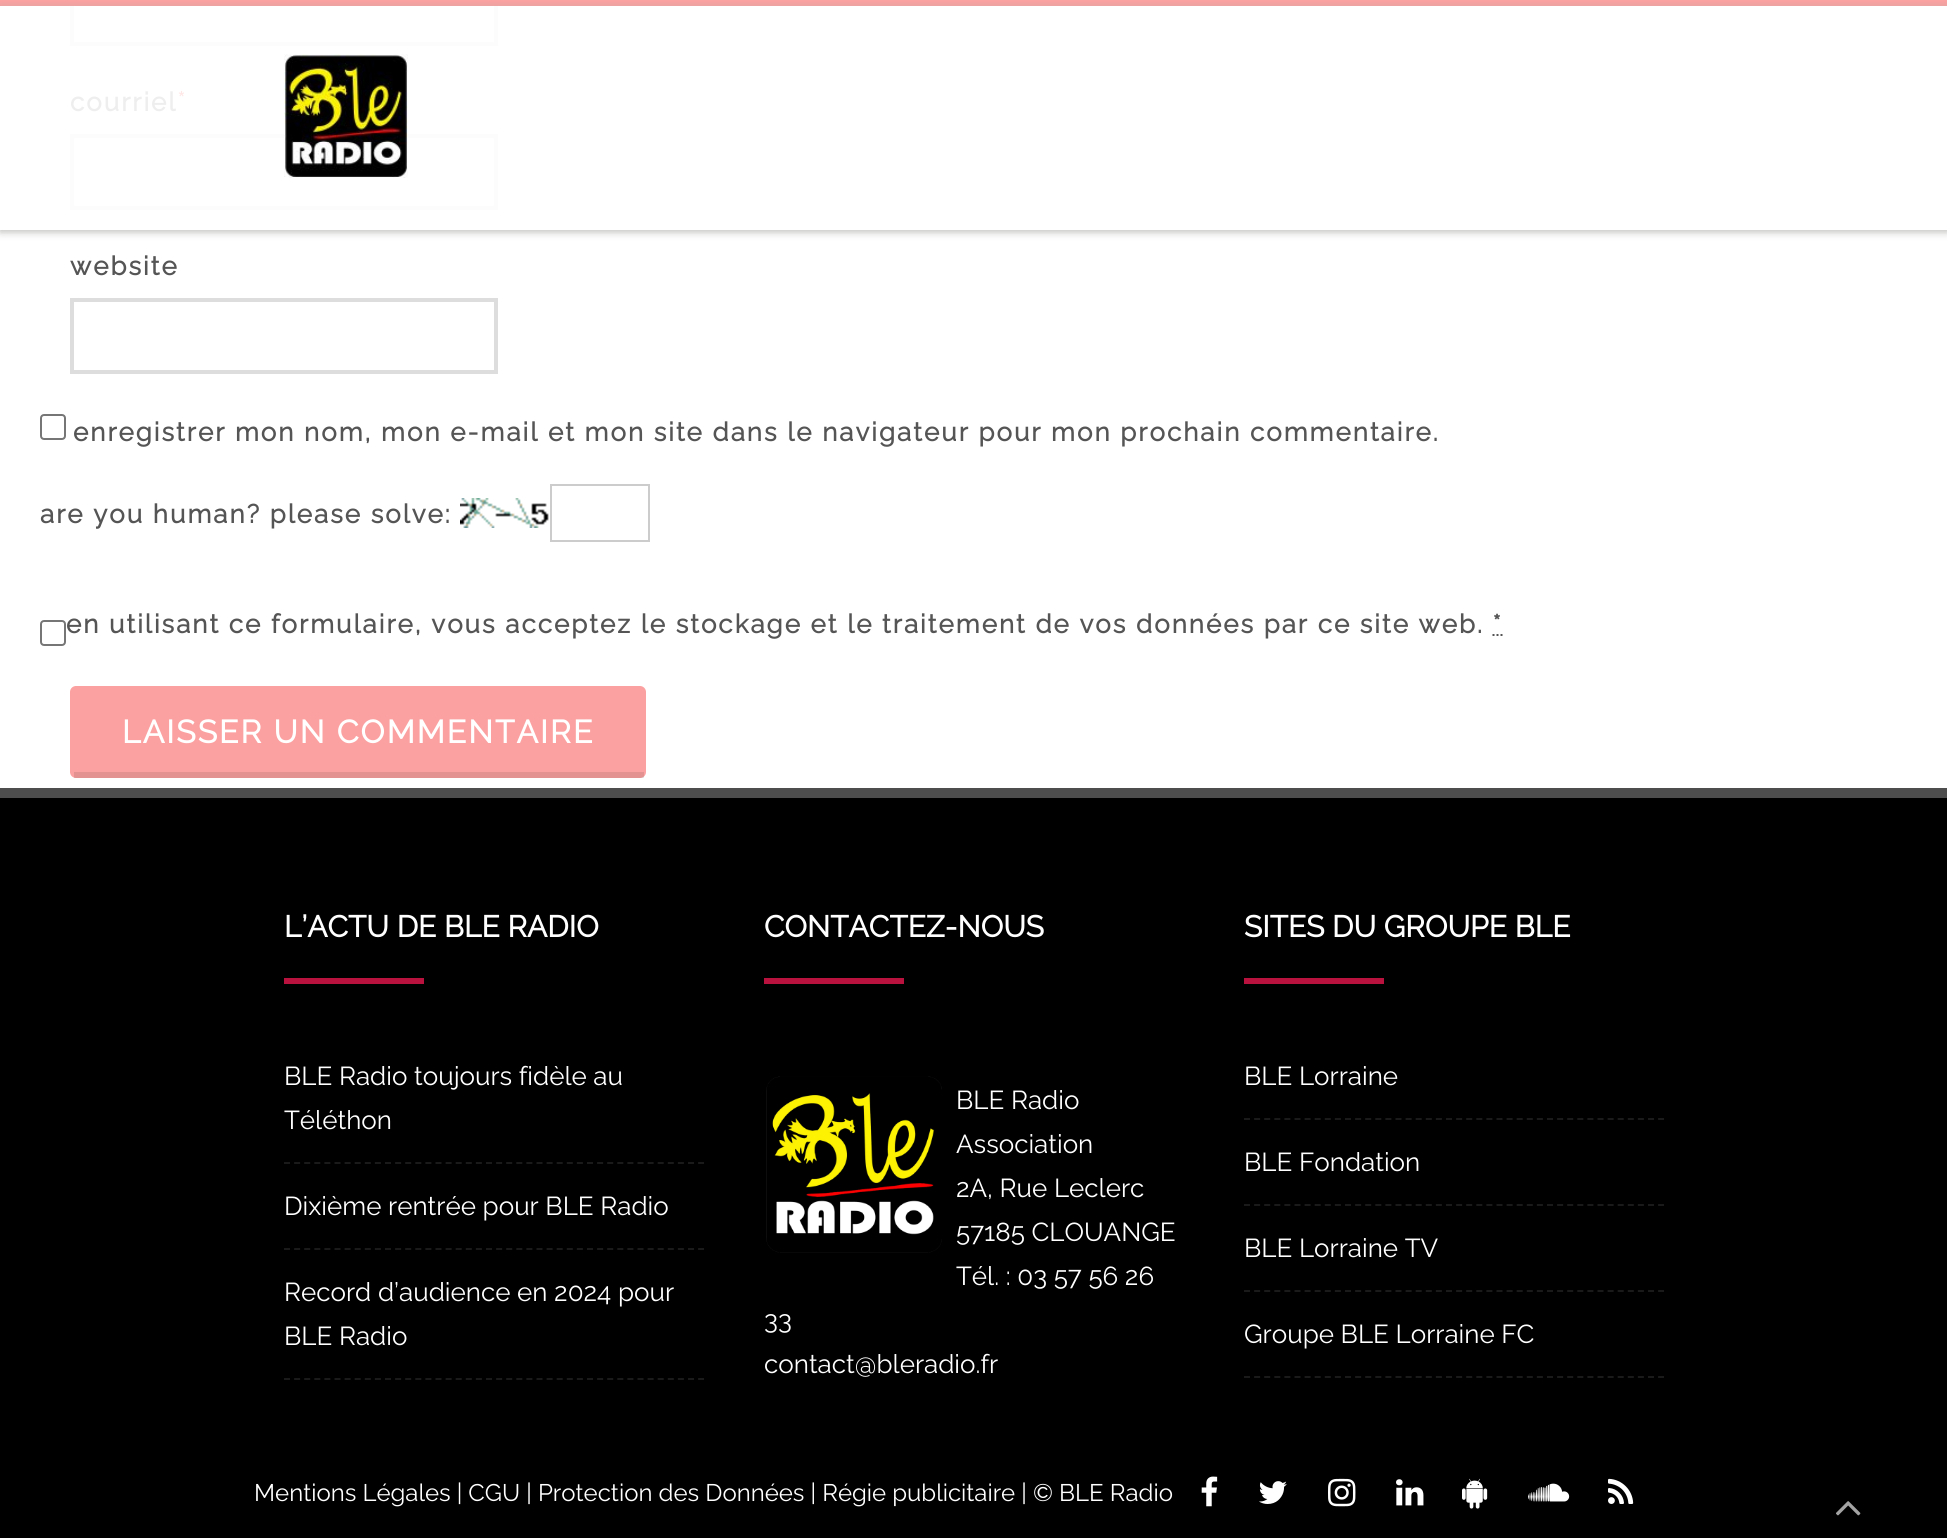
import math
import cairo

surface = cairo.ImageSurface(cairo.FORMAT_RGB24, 1947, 1538)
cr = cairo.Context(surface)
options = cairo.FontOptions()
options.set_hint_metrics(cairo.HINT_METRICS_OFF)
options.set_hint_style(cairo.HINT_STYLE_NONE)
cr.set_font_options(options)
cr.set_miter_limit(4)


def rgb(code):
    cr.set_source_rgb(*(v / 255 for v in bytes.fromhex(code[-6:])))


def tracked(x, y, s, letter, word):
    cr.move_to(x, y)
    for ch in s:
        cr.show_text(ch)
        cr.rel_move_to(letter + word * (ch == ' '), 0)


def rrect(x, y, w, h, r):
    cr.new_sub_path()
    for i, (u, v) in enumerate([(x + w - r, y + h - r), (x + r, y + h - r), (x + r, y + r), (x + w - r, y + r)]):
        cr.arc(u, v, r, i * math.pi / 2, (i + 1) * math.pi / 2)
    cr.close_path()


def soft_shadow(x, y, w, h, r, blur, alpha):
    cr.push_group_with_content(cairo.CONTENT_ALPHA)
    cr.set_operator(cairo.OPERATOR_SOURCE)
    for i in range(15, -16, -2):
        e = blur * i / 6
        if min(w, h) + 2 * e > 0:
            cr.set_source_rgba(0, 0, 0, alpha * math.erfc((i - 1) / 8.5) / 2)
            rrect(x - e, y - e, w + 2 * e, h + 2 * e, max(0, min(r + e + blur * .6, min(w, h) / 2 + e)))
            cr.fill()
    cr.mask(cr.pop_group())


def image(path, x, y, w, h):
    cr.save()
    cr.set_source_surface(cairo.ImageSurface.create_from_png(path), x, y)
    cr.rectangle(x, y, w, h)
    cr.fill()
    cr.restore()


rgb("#ffffff")
cr.paint()
cr.rectangle(72, -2, 424, 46)
rgb("#fcfcfc")
cr.set_line_width(4)
cr.stroke()
rgb("#fca1a1")
cr.rectangle(0, 0, 1947, 6)
cr.fill()
cr.rectangle(72, 136, 424, 72)
rgb("#fcfcfc")
cr.stroke()
cr.save()
cr.set_fill_rule(cairo.FILL_RULE_EVEN_ODD)
cr.new_path()
cr.move_to(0, 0)
cr.line_to(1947, 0)
cr.line_to(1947, 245)
cr.line_to(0, 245)
cr.close_path()
cr.move_to(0, 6)
cr.line_to(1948, 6)
cr.line_to(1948, 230)
cr.line_to(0, 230)
cr.close_path()
cr.clip()
rgb("#a7a9a4")
soft_shadow(0, 8, 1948, 224, 0, 4, 0.75)
cr.restore()
image("img/1.png", 284, 54, 124, 124)
cr.rectangle(72, 300, 424, 72)
rgb("#dddddd")
cr.stroke()
rrect(41, 415, 24, 24, 3)
rgb("#767676")
cr.set_line_width(2)
cr.stroke()
image("img/2.png", 460, 498, 89, 30)
cr.rectangle(551, 485, 98, 56)
rgb("#cccccc")
cr.stroke()
rrect(41, 621, 24, 24, 3)
rgb("#767676")
cr.stroke()
cr.new_path()
cr.move_to(1492.5, 635)
cr.line_to(1494.5, 635)
cr.move_to(1496.5, 635)
cr.line_to(1498.5, 635)
cr.move_to(1500.5, 635)
cr.line_to(1502.5, 635)
rgb("#555555")
cr.stroke()
rgb("#fca1a1")
rrect(70, 686, 576, 92, 6)
cr.fill()
cr.set_source_rgba(0, 0, 0, 0.1)
cr.rectangle(74, 772, 570, 6)
cr.fill()
rgb("#000000")
cr.rectangle(0, 798, 1947, 740)
cr.fill()
rgb("#4d4d4d")
cr.rectangle(0, 788, 1947, 10)
cr.fill()
rgb("#ba123f")
cr.rectangle(284, 978, 140, 6)
cr.fill()
cr.new_path()
cr.move_to(284, 1163)
cr.line_to(704, 1163)
rgb("#1a1a1a")
cr.set_dash([6, 4.1])
cr.stroke()
cr.new_path()
cr.move_to(284, 1249)
cr.line_to(704, 1249)
cr.stroke()
cr.new_path()
cr.move_to(284, 1379)
cr.line_to(704, 1379)
cr.stroke()
rgb("#ba123f")
cr.rectangle(764, 978, 140, 6)
cr.fill()
image("img/3.png", 766, 1076, 176, 177)
cr.rectangle(1244, 978, 140, 6)
cr.fill()
cr.new_path()
cr.move_to(1244, 1119)
cr.line_to(1664, 1119)
rgb("#1a1a1a")
cr.stroke()
cr.new_path()
cr.move_to(1244, 1205)
cr.line_to(1664, 1205)
cr.stroke()
cr.new_path()
cr.move_to(1244, 1291)
cr.line_to(1664, 1291)
cr.stroke()
cr.new_path()
cr.move_to(1244, 1377)
cr.line_to(1664, 1377)
cr.stroke()
image("img/4.png", 1201, 1476, 17, 31)
image("img/5.png", 1259, 1481, 28, 23)
image("img/6.png", 1328, 1478, 28, 29)
image("img/7.png", 1396, 1479, 28, 27)
image("img/8.png", 1462, 1478, 26, 31)
image("img/9.png", 1528, 1483, 42, 19)
image("img/10.png", 1608, 1478, 26, 26)
image("img/11.png", 1836, 1501, 25, 15)
cr.select_font_face("Raleway", cairo.FONT_SLANT_NORMAL, cairo.FONT_WEIGHT_BOLD)
cr.set_font_size(26)
rgb("#eeeeee")
tracked(70, 111, "courriel", 2, 0)
cr.select_font_face("Raleway")
cr.set_font_size(28)
rgb("#ffe6e6")
cr.move_to(177, 111)
cr.show_text("*")
cr.select_font_face("Raleway", cairo.FONT_SLANT_NORMAL, cairo.FONT_WEIGHT_BOLD)
cr.set_font_size(26)
rgb("#555555")
for x, y, s in [
    (70, 275, "website"),
    (73, 441, "enregistrer mon nom, mon e-mail et mon site dans le navigateur pour mon prochain commentaire."),
    (40, 523, "are you human? please solve:"),
    (66, 633, "en utilisant ce formulaire, vous acceptez le stockage et le traitement de vos données par ce site web. *"),
]:
    tracked(x, y, s, 2, 0)
cr.set_font_size(32)
rgb("#ffffff")
tracked(122, 743, "LAISSER UN COMMENTAIRE", 2, 0)
cr.set_font_size(30)
cr.move_to(284, 937)
cr.show_text("L’ACTU DE BLE RADIO")
cr.select_font_face("Raleway")
cr.set_font_size(26)
for x, y, s in [
    (284, 1085, "BLE Radio toujours fidèle au"),
    (284, 1129, "Téléthon"),
    (284, 1215, "Dixième rentrée pour BLE Radio"),
    (284, 1301, "Record d’audience en 2024 pour"),
    (284, 1345, "BLE Radio"),
]:
    cr.move_to(x, y)
    cr.show_text(s)
cr.select_font_face("Raleway", cairo.FONT_SLANT_NORMAL, cairo.FONT_WEIGHT_BOLD)
cr.set_font_size(30)
cr.move_to(764, 937)
cr.show_text("CONTACTEZ-NOUS")
cr.select_font_face("Raleway")
cr.set_font_size(26)
for x, y, s in [
    (956, 1109, "BLE Radio"),
    (956, 1153, "Association"),
    (956, 1197, "2A, Rue Leclerc"),
    (956, 1241, "57185 CLOUANGE"),
    (956, 1285, "Tél. : 03 57 56 26"),
    (764, 1329, "33"),
    (764, 1373, "contact@bleradio.fr"),
]:
    cr.move_to(x, y)
    cr.show_text(s)
cr.select_font_face("Raleway", cairo.FONT_SLANT_NORMAL, cairo.FONT_WEIGHT_BOLD)
cr.set_font_size(30)
cr.move_to(1244, 937)
cr.show_text("SITES DU GROUPE BLE")
cr.select_font_face("Raleway")
cr.set_font_size(26)
for x, y, s in [
    (1244, 1085, "BLE Lorraine"),
    (1244, 1171, "BLE Fondation"),
    (1244, 1257, "BLE Lorraine TV"),
    (1244, 1343, "Groupe BLE Lorraine FC"),
]:
    cr.move_to(x, y)
    cr.show_text(s)
cr.set_font_size(24)
cr.move_to(254, 1501)
cr.show_text("Mentions Légales | CGU | Protection des Données | Régie publicitaire | © BLE Radio")
surface.write_to_png("page.png")
